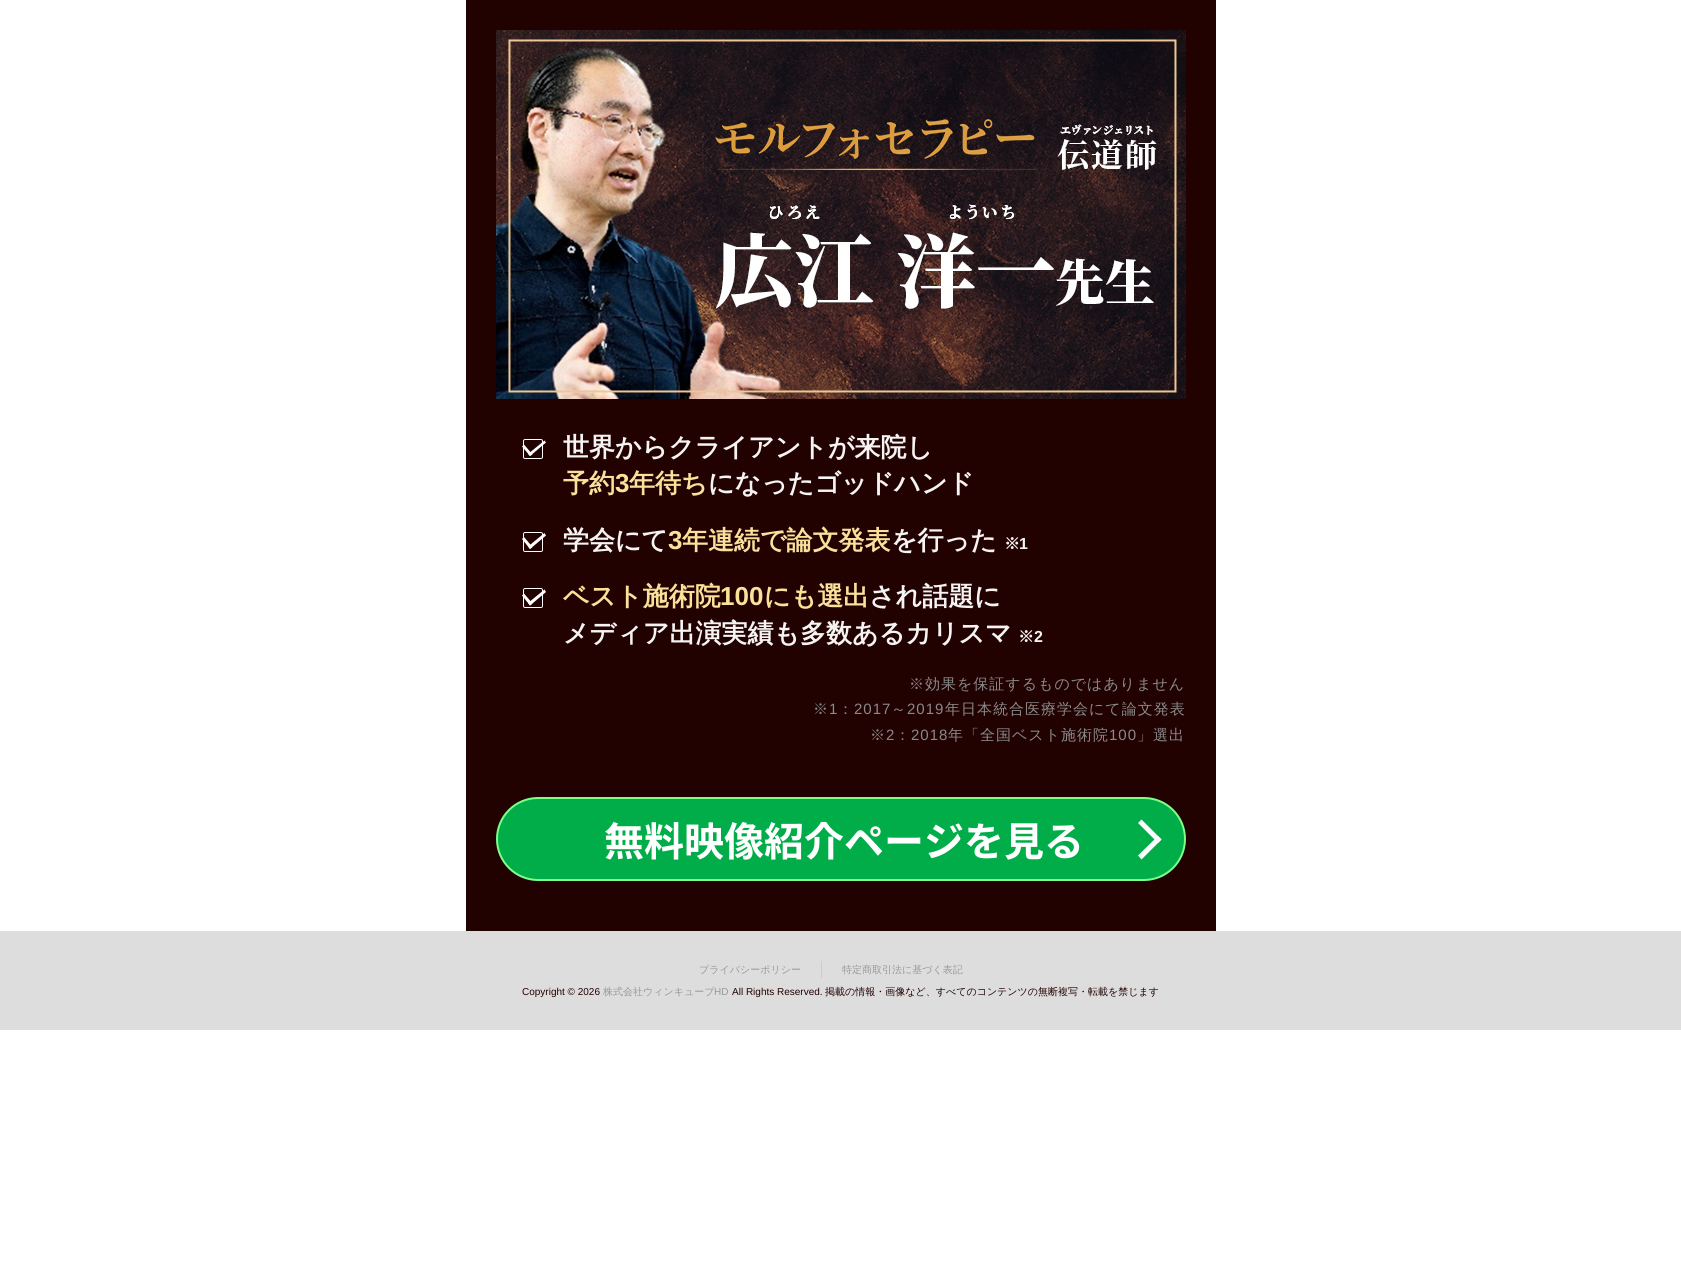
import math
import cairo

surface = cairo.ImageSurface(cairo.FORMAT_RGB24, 1681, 1287)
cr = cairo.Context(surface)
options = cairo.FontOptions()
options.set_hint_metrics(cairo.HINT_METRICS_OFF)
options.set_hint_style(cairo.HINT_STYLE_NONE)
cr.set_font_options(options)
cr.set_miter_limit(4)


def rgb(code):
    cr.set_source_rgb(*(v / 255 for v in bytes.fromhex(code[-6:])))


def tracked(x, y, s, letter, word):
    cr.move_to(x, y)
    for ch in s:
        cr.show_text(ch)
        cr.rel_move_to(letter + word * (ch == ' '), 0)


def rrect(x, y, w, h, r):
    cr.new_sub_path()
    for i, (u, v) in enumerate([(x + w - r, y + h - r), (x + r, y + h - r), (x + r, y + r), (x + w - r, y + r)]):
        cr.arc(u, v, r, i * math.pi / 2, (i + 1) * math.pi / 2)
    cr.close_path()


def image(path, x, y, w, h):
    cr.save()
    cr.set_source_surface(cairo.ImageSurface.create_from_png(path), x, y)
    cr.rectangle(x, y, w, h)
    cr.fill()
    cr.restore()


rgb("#ffffff")
cr.paint()
rgb("#220101")
cr.rectangle(466, 0, 750, 931)
cr.fill()
image("img/1.png", 496, 30, 690, 369)
rgb("#ffffff")
cr.new_path()
cr.move_to(544.5, 440.5)
cr.line_to(546, 442.5)
cr.line_to(530, 456)
cr.line_to(528, 454)
cr.close_path()
cr.fill()
cr.new_path()
cr.move_to(524, 444.5)
cr.line_to(532.5, 454.5)
cr.line_to(530, 456)
cr.line_to(522, 446.5)
cr.close_path()
cr.fill()
rrect(523.5, 439.5, 19, 19, 1.5)
cr.set_line_width(1)
cr.stroke()
cr.new_path()
cr.move_to(544.5, 533)
cr.line_to(546, 535.5)
cr.line_to(530, 549)
cr.line_to(528, 546.5)
cr.close_path()
cr.fill()
cr.new_path()
cr.move_to(524, 537)
cr.line_to(532.5, 547)
cr.line_to(530, 549)
cr.line_to(522, 539)
cr.close_path()
cr.fill()
rrect(523.5, 532.5, 19, 19, 1.5)
cr.stroke()
cr.new_path()
cr.move_to(544.5, 589.5)
cr.line_to(546, 592)
cr.line_to(530, 605.5)
cr.line_to(528, 603)
cr.close_path()
cr.fill()
cr.new_path()
cr.move_to(524, 593.5)
cr.line_to(532.5, 603.5)
cr.line_to(530, 605.5)
cr.line_to(522, 595.5)
cr.close_path()
cr.fill()
rrect(523.5, 588.5, 19, 19, 1.5)
cr.stroke()
rgb("#00ad48")
rrect(497, 798, 688, 82, 41)
cr.fill_preserve()
rgb("#7dff88")
cr.set_line_width(2)
cr.stroke()
rgb("#ffffff")
cr.new_path()
cr.move_to(1141.5, 819.5)
cr.line_to(1161.5, 839.5)
cr.line_to(1158, 843)
cr.line_to(1138, 823)
cr.close_path()
cr.fill()
cr.new_path()
cr.move_to(1158, 836)
cr.line_to(1161.5, 839.5)
cr.line_to(1141.5, 859.5)
cr.line_to(1138, 855.5)
cr.close_path()
cr.fill()
rgb("#dddddd")
cr.rectangle(0, 931, 1681, 99)
cr.fill()
rgb("#cccccc")
cr.rectangle(821, 961, 1, 17)
cr.fill()
cr.select_font_face("WenQuanYi Zen Hei", cairo.FONT_SLANT_NORMAL, cairo.FONT_WEIGHT_BOLD)
cr.set_font_size(26)
rgb("#f5f4f2")
cr.move_to(563, 456)
cr.show_text("世界からクライアントが来院し")
rgb("#fae19a")
cr.move_to(563, 492)
cr.show_text("予約")
cr.select_font_face("Liberation Sans", cairo.FONT_SLANT_NORMAL, cairo.FONT_WEIGHT_BOLD)
cr.move_to(615, 492)
cr.show_text("3")
cr.select_font_face("WenQuanYi Zen Hei", cairo.FONT_SLANT_NORMAL, cairo.FONT_WEIGHT_BOLD)
cr.move_to(629, 492)
cr.show_text("年待ち")
rgb("#f5f4f2")
cr.move_to(708, 492)
cr.show_text("になったゴッドハンド")
cr.move_to(563, 549)
cr.show_text("学会にて")
cr.select_font_face("Liberation Sans", cairo.FONT_SLANT_NORMAL, cairo.FONT_WEIGHT_BOLD)
rgb("#fae19a")
cr.move_to(668, 549)
cr.show_text("3")
cr.select_font_face("WenQuanYi Zen Hei", cairo.FONT_SLANT_NORMAL, cairo.FONT_WEIGHT_BOLD)
cr.move_to(682, 549)
cr.show_text("年連続で論文発表")
rgb("#f5f4f2")
cr.move_to(891, 549)
cr.show_text("を行った")
cr.set_font_size(16)
cr.move_to(1004, 549)
cr.show_text("※")
cr.select_font_face("Liberation Sans", cairo.FONT_SLANT_NORMAL, cairo.FONT_WEIGHT_BOLD)
cr.move_to(1019, 549)
cr.show_text("1")
cr.select_font_face("WenQuanYi Zen Hei", cairo.FONT_SLANT_NORMAL, cairo.FONT_WEIGHT_BOLD)
cr.set_font_size(26)
rgb("#fae19a")
cr.move_to(563, 605)
cr.show_text("ベスト施術院")
cr.select_font_face("Liberation Sans", cairo.FONT_SLANT_NORMAL, cairo.FONT_WEIGHT_BOLD)
cr.move_to(720, 605)
cr.show_text("100")
cr.select_font_face("WenQuanYi Zen Hei", cairo.FONT_SLANT_NORMAL, cairo.FONT_WEIGHT_BOLD)
cr.move_to(764, 605)
cr.show_text("にも選出")
rgb("#f5f4f2")
cr.move_to(869, 605)
cr.show_text("され話題に")
cr.move_to(563, 642)
cr.show_text("メディア出演実績も多数あるカリスマ")
cr.set_font_size(16)
cr.move_to(1018, 642)
cr.show_text("※")
cr.select_font_face("Liberation Sans", cairo.FONT_SLANT_NORMAL, cairo.FONT_WEIGHT_BOLD)
cr.move_to(1034, 642)
cr.show_text("2")
cr.select_font_face("WenQuanYi Zen Hei Medium")
cr.set_font_size(15)
rgb("#8a8a8a")
tracked(909, 689, "※効果を保証するものではありません", 1, 0)
tracked(813, 714, "※", 1, 0)
cr.select_font_face("Liberation Sans")
tracked(829, 714, "1", 1, 0)
cr.select_font_face("WenQuanYi Zen Hei Medium")
tracked(838, 714, "：", 1, 0)
cr.select_font_face("Liberation Sans")
tracked(854, 714, "2017", 1, 0)
cr.select_font_face("WenQuanYi Zen Hei Medium")
tracked(891, 714, "～", 1, 0)
cr.select_font_face("Liberation Sans")
tracked(907, 714, "2019", 1, 0)
cr.select_font_face("WenQuanYi Zen Hei Medium")
tracked(945, 714, "年日本統合医療学会にて論文発表", 1, 0)
tracked(870, 740, "※", 1, 0)
cr.select_font_face("Liberation Sans")
tracked(886, 740, "2", 1, 0)
cr.select_font_face("WenQuanYi Zen Hei Medium")
tracked(895, 740, "：", 1, 0)
cr.select_font_face("Liberation Sans")
tracked(911, 740, "2018", 1, 0)
cr.select_font_face("WenQuanYi Zen Hei Medium")
tracked(948, 740, "年「全国ベスト施術院", 1, 0)
cr.select_font_face("Liberation Sans")
tracked(1109, 740, "100", 1, 0)
cr.select_font_face("WenQuanYi Zen Hei Medium")
tracked(1137, 740, "」選出", 1, 0)
cr.select_font_face("Noto Sans JP", cairo.FONT_SLANT_NORMAL, cairo.FONT_WEIGHT_BOLD)
cr.set_font_size(40)
rgb("#ffffff")
cr.move_to(604, 856)
cr.show_text("無料映像紹介ページを見る")
cr.select_font_face("WenQuanYi Zen Hei Medium")
cr.set_font_size(10)
rgb("#989898")
cr.move_to(699, 973)
cr.show_text("プライバシーポリシー")
cr.move_to(842, 973)
cr.show_text("特定商取引法に基づく表記")
cr.select_font_face("Liberation Sans")
rgb("#220101")
cr.move_to(522, 995)
cr.show_text("Copyright © 2026")
cr.select_font_face("WenQuanYi Zen Hei Medium")
rgb("#989898")
cr.move_to(603, 995)
cr.show_text("株式会社ウィンキューブ")
cr.select_font_face("Liberation Sans")
cr.move_to(714, 995)
cr.show_text("HD")
rgb("#220101")
cr.move_to(732, 995)
cr.show_text("All Rights Reserved.")
cr.select_font_face("WenQuanYi Zen Hei Medium")
cr.move_to(825, 995)
cr.show_text("掲載の情報・画像など、すべてのコンテンツの無断複写・転載を禁じます")
surface.write_to_png("page.png")
